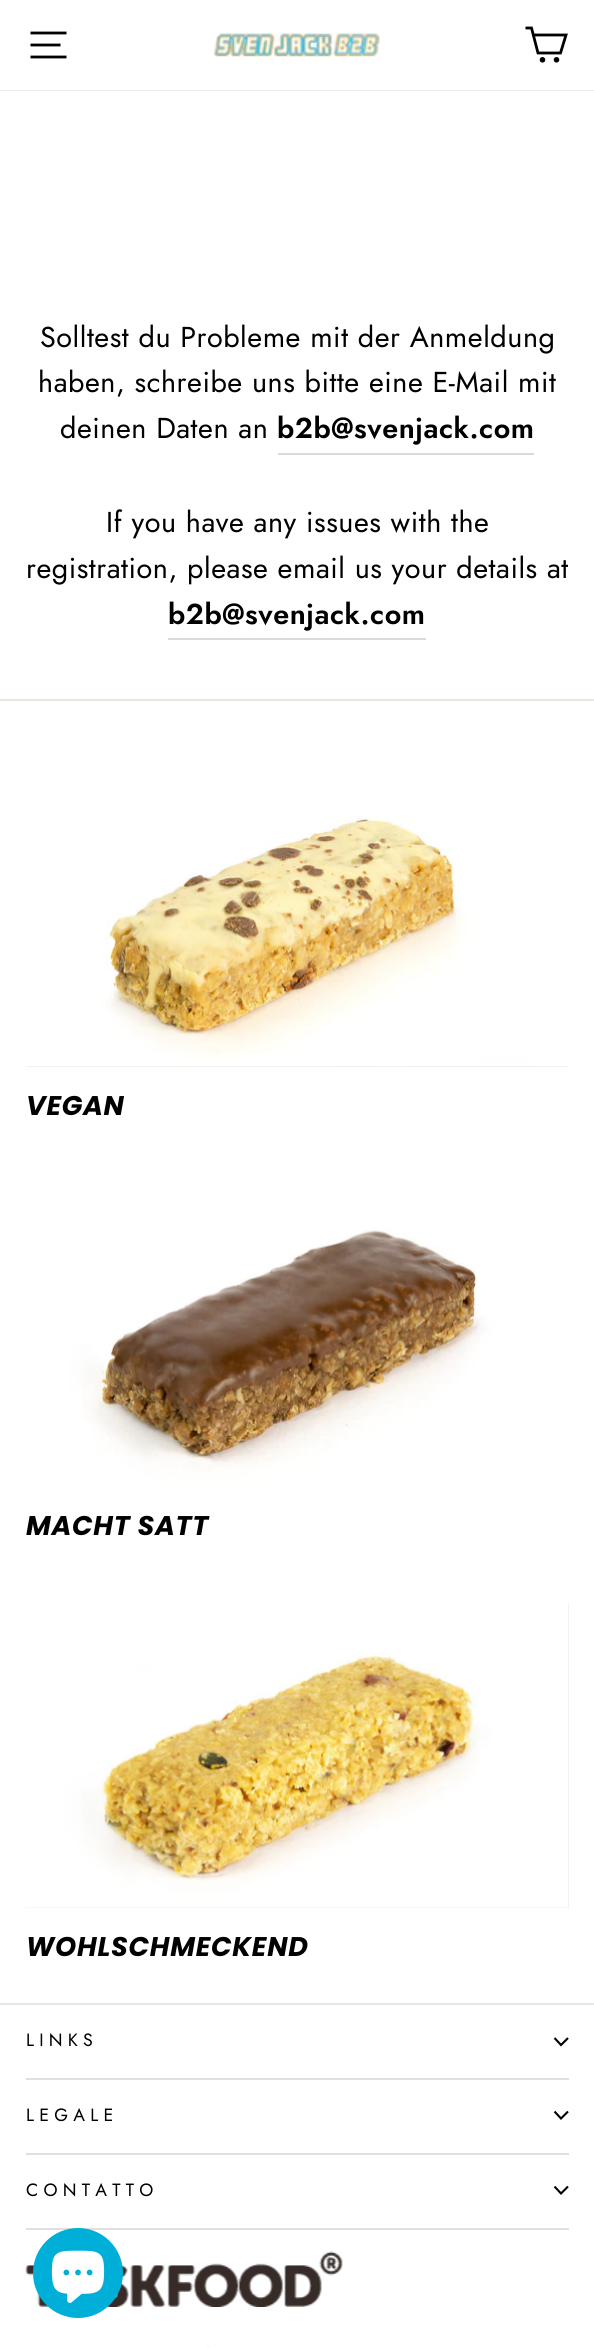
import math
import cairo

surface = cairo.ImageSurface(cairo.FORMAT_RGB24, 594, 2348)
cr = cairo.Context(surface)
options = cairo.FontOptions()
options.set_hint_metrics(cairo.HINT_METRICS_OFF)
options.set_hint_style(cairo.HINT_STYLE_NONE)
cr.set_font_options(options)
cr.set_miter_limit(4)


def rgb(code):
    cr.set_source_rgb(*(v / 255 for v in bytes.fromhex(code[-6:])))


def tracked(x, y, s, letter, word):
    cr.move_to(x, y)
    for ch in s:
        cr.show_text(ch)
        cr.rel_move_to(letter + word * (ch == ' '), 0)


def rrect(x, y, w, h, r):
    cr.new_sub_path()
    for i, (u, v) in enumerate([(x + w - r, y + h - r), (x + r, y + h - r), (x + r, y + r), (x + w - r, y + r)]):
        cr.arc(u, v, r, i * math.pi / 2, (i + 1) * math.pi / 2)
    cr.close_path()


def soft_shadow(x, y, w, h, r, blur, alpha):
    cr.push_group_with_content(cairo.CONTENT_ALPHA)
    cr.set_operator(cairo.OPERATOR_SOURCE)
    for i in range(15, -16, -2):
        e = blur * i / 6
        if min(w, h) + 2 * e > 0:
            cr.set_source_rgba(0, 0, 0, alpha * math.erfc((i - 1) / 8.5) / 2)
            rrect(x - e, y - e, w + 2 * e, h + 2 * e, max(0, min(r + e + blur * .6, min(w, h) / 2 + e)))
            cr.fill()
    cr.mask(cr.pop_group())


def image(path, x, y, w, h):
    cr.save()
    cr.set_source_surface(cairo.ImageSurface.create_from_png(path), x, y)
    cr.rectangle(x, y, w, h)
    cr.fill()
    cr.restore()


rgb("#ffffff")
cr.paint()
cr.save()
cr.rectangle(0, 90, 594, 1)
cr.clip()
rgb("#000000")
soft_shadow(0, 0, 594, 90, 0, 1, 0.2)
cr.restore()
cr.new_path()
cr.move_to(30.5, 33)
cr.line_to(66.5, 33)
cr.move_to(30.5, 45)
cr.line_to(60.5, 45)
cr.move_to(30.5, 57)
cr.line_to(66.5, 57)
rgb("#000000")
cr.set_line_width(2.8)
cr.stroke()
image("img/1.png", 214, 33, 166, 24)
cr.new_path()
cr.move_to(533.5, 35)
cr.line_to(566, 35)
cr.line_to(560.5, 53)
cr.line_to(538, 53)
cr.line_to(531.5, 28)
cr.line_to(525.5, 28)
cr.stroke()
cr.arc(542.5, 59.8, 1.4, 0, 2 * math.pi)
cr.stroke()
cr.arc(556.5, 59.8, 1.4, 0, 2 * math.pi)
cr.stroke()
for x, y, w, h, color in [
    (278, 453, 256, 2, "#d9d9d9"),
    (168, 638, 258, 2, "#d9d9d9"),
    (0, 699, 594, 2, "#e8e8e1"),
    (26, 1066, 543, 1, "#e5e5e5"),
]:
    rgb(color)
    cr.rectangle(x, y, w, h)
    cr.fill()
image("img/2.png", 26, 761, 543, 306)
image("img/3.png", 26, 1182, 543, 306)
cr.rectangle(26, 1604, 543, 304)
cr.fill()
image("img/4.png", 26, 1604, 543, 304)
rgb("#e8e8e1")
cr.rectangle(0, 2003, 594, 2)
cr.fill()
cr.new_path()
cr.move_to(554.5, 2038)
cr.line_to(561, 2045)
cr.line_to(568, 2038)
rgb("#000000")
cr.set_line_width(2.1)
cr.stroke()
rgb("#e0e0e0")
cr.rectangle(26, 2078, 543, 2)
cr.fill()
cr.new_path()
cr.move_to(554.5, 2111.5)
cr.line_to(561, 2118.5)
cr.line_to(568, 2111.5)
rgb("#000000")
cr.stroke()
rgb("#e0e0e0")
cr.rectangle(26, 2153, 543, 2)
cr.fill()
cr.new_path()
cr.move_to(554.5, 2186.5)
cr.line_to(561, 2193.5)
cr.line_to(568, 2186.5)
rgb("#000000")
cr.stroke()
rgb("#e0e0e0")
cr.rectangle(26, 2228, 543, 2)
cr.fill()
image("img/5.png", 25, 2251, 318, 56)
image("img/6.png", 207, 2347, 3, 1)
rgb("#00afd7")
cr.arc(78, 2273, 45, 0, 2 * math.pi)
cr.fill()
image("img/7.png", 51, 2250, 54, 53)
cr.select_font_face("Jost")
cr.set_font_size(28.75)
rgb("#000000")
for x, y, s in [
    (40, 347, "Solltest du Probleme mit der Anmeldung"),
    (38, 392, "haben, schreibe uns bitte eine E-Mail mit"),
    (60, 438, "deinen Daten an"),
]:
    tracked(x, y, s, 0.55, 0)
cr.select_font_face("Jost SemiBold")
tracked(277, 438, "b2b@svenjack.com", 0.55, 0)
cr.select_font_face("Jost")
tracked(106, 532, "If you have any issues with the", 0.55, 0)
tracked(26, 578, "registration, please email us your details at", 0.55, 0)
cr.select_font_face("Jost SemiBold")
tracked(168, 624, "b2b@svenjack.com", 0.55, 0)
cr.select_font_face("Poppins", cairo.FONT_SLANT_ITALIC, cairo.FONT_WEIGHT_BOLD)
cr.set_font_size(27)
for x, y, s in [
    (26, 1115, "VEGAN"),
    (26, 1535, "MACHT SATT"),
    (26, 1956, "WOHLSCHMECKEND"),
]:
    tracked(x, y, s, 0.7, 0)
cr.select_font_face("Jost")
cr.set_font_size(17.75)
for x, y, s in [
    (26, 2046, "LINKS"),
    (26, 2121, "LEGALE"),
    (26, 2196, "CONTATTO"),
]:
    tracked(x, y, s, 5.25, 0)
surface.write_to_png("page.png")
